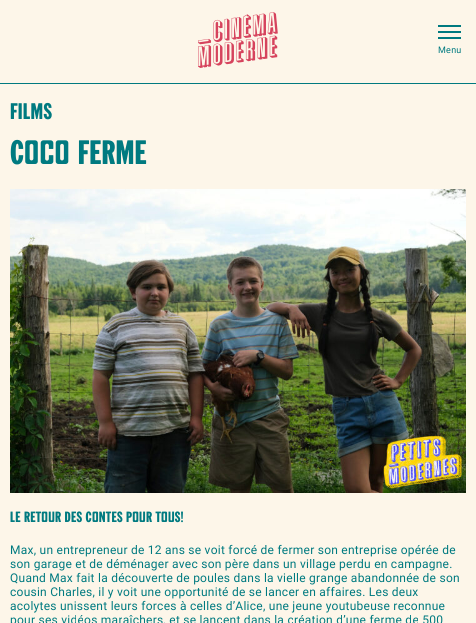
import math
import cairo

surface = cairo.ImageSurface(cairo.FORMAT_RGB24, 476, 623)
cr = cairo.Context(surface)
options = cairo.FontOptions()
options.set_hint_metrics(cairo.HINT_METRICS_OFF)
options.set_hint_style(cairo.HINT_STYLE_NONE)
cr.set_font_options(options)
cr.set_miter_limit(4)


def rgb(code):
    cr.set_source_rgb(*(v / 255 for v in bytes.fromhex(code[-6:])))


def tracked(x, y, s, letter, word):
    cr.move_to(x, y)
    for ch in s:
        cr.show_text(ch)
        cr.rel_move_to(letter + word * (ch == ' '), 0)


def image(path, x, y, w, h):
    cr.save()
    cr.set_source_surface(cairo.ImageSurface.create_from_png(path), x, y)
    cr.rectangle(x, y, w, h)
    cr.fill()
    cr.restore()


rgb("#fdf6e9")
cr.paint()
rgb("#007a80")
cr.rectangle(0, 83, 476, 1)
cr.fill()
image("img/1.png", 198, 12, 80, 56)
for x, y, w, h, color in [
    (438, 25, 23, 2, "#007a80"),
    (438, 31, 23, 2, "#007a80"),
    (438, 37, 23, 2, "#007a80"),
]:
    rgb(color)
    cr.rectangle(x, y, w, h)
    cr.fill()
image("img/2.png", 10, 189, 456, 304)
cr.select_font_face("Roboto")
cr.set_font_size(9)
tracked(438, 53, "Menu", 0.25, 0)
cr.select_font_face("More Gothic", cairo.FONT_SLANT_NORMAL, cairo.FONT_WEIGHT_BOLD)
cr.set_font_size(22)
tracked(10, 119, "Films", 0.25, 0)
cr.set_font_size(33)
tracked(10, 164, "Coco ferme", 0.25, 1)
cr.set_font_size(14.5)
tracked(10, 522, "Le retour des Contes pour tous!", 0.25, 0)
cr.select_font_face("Roboto")
cr.set_font_size(12)
for x, y, s in [
    (10, 554, "Max, un entrepreneur de 12 ans se voit forcé de fermer son entreprise opérée de"),
    (10, 568, "son garage et de déménager avec son père dans un village perdu en campagne."),
    (10, 582, "Quand Max fait la découverte de poules dans la vielle grange abandonnée de son"),
    (10, 596, "cousin Charles, il y voit une opportunité de se lancer en affaires. Les deux"),
    (10, 610, "acolytes unissent leurs forces à celles d’Alice, une jeune youtubeuse reconnue"),
    (10, 624, "pour ses vidéos maraîchers, et se lancent dans la création d’une ferme de 500"),
]:
    tracked(x, y, s, 0.25, 0)
surface.write_to_png("page.png")
